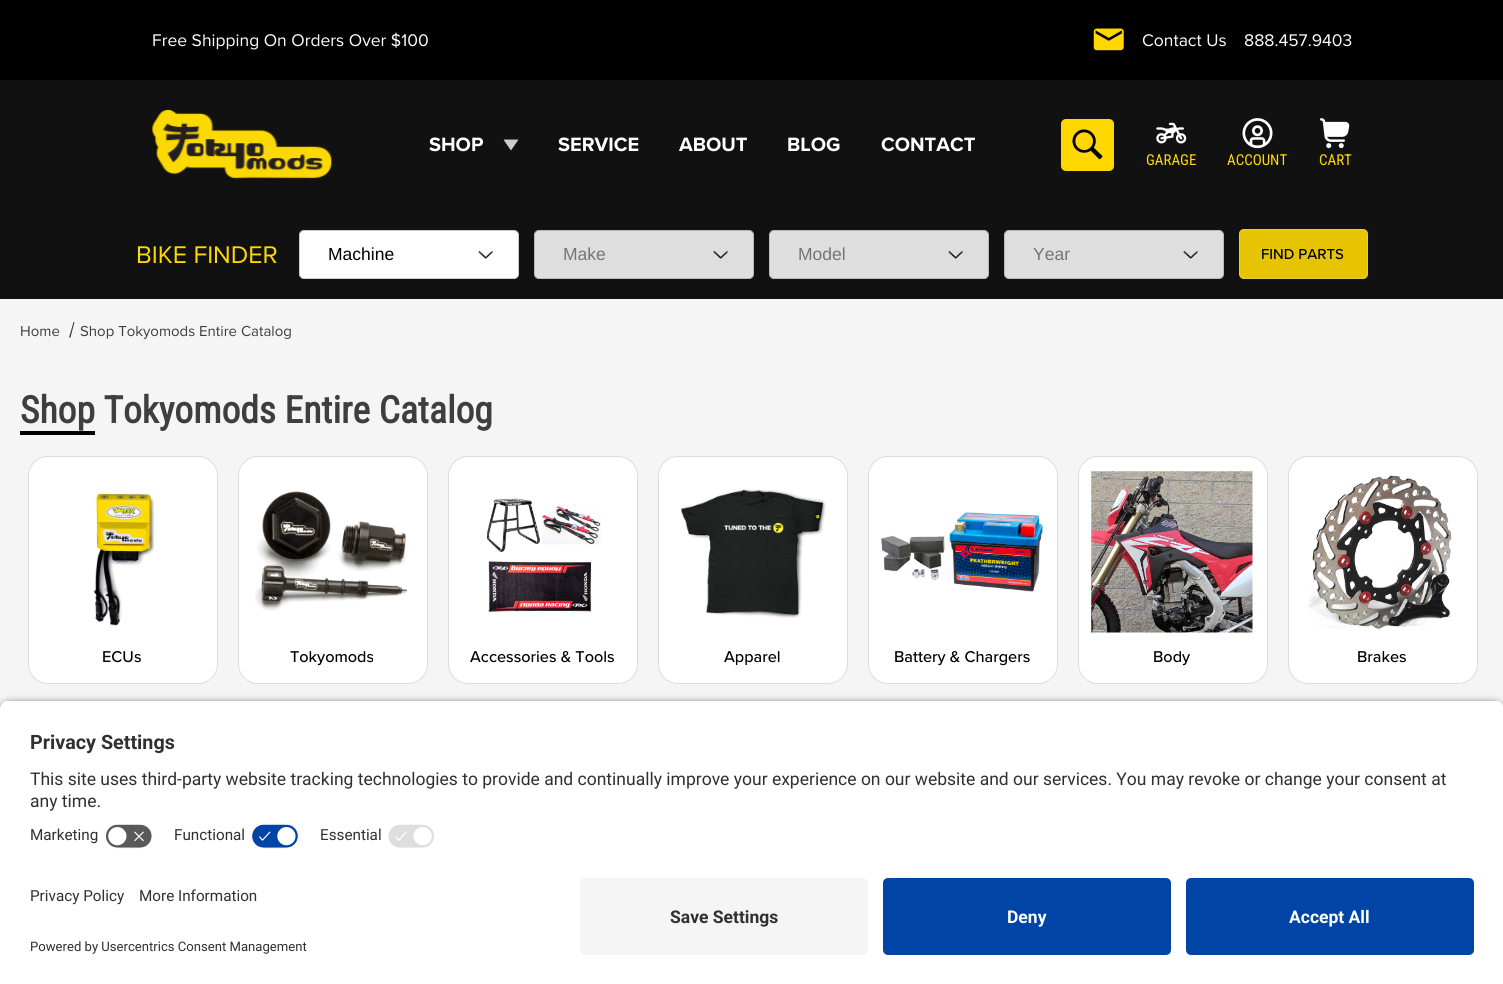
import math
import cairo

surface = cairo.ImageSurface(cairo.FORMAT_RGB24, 1503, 984)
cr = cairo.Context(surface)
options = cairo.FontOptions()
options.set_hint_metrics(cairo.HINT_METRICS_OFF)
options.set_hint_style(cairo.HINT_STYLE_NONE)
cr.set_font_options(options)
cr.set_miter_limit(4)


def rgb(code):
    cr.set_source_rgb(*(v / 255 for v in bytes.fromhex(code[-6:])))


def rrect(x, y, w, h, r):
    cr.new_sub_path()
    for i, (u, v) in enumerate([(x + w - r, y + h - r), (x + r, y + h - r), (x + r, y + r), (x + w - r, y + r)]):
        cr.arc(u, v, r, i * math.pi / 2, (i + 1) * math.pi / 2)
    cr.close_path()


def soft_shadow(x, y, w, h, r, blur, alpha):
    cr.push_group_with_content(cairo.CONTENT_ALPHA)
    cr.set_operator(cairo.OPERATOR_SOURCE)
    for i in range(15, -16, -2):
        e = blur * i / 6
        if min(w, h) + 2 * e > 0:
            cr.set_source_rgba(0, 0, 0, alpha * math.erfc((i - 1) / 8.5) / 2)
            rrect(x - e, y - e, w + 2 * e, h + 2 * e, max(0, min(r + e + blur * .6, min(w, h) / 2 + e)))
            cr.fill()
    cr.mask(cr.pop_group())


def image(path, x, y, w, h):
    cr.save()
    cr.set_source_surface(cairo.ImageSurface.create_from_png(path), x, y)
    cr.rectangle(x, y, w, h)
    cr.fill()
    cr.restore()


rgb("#f5f5f5")
cr.paint()
rgb("#010101")
cr.rectangle(0, 0, 1503, 80)
cr.fill()
image("img/1.png", 1093, 28, 31, 23)
rgb("#111111")
cr.rectangle(0, 80, 1503, 219)
cr.fill()
image("img/2.png", 152, 110, 180, 69)
image("img/3.png", 503, 139, 16, 12)
rgb("#ffd800")
rrect(1061, 119, 53, 52, 5)
cr.fill()
image("img/4.png", 1072, 129, 31, 31)
image("img/5.png", 1156, 122, 31, 22)
image("img/6.png", 1242, 118, 31, 31)
image("img/7.png", 1320, 118, 30, 31)
rgb("#ffffff")
rrect(299.5, 230.5, 219, 48, 4.5)
cr.fill_preserve()
rgb("#cccccc")
cr.set_line_width(1)
cr.stroke()
image("img/8.png", 478, 250, 15, 9)
rgb("#dedede")
rrect(534.5, 230.5, 219, 48, 4.5)
cr.fill_preserve()
rgb("#b9b9b9")
cr.stroke()
image("img/9.png", 713, 250, 15, 9)
rgb("#dedede")
rrect(769.5, 230.5, 219, 48, 4.5)
cr.fill_preserve()
rgb("#b9b9b9")
cr.stroke()
image("img/9.png", 948, 250, 15, 9)
rgb("#dedede")
rrect(1004.5, 230.5, 219, 48, 4.5)
cr.fill_preserve()
rgb("#b9b9b9")
cr.stroke()
image("img/9.png", 1183, 250, 15, 9)
rgb("#e7c402")
rrect(1239, 229, 129, 50, 5)
cr.fill()
rrect(1239.5, 229.5, 128, 49, 4.5)
cr.set_source_rgba(0.906, 0.906, 0.906, 0.3)
cr.stroke()
rgb("#3e3e3e")
cr.new_path()
cr.move_to(73.5, 322)
cr.line_to(74.5, 322)
cr.line_to(70.5, 337.5)
cr.line_to(69, 337.5)
cr.close_path()
cr.fill()
rgb("#010101")
cr.rectangle(20, 431, 75, 4)
cr.fill()
rgb("#ffffff")
rrect(28.5, 456.5, 189, 227, 19.5)
cr.fill_preserve()
rgb("#dddddd")
cr.stroke()
image("img/10.png", 93, 493, 62, 133)
rgb("#ffffff")
rrect(238.5, 456.5, 189, 227, 19.5)
cr.fill_preserve()
rgb("#dddddd")
cr.stroke()
image("img/11.png", 255, 491, 153, 120)
rgb("#ffffff")
rrect(448.5, 456.5, 189, 227, 19.5)
cr.fill_preserve()
rgb("#dddddd")
cr.stroke()
image("img/12.png", 486, 498, 115, 115)
rgb("#ffffff")
rrect(658.5, 456.5, 189, 227, 19.5)
cr.fill_preserve()
rgb("#dddddd")
cr.stroke()
image("img/13.png", 681, 488, 145, 130)
rgb("#ffffff")
rrect(868.5, 456.5, 189, 227, 19.5)
cr.fill_preserve()
rgb("#dddddd")
cr.stroke()
image("img/14.png", 881, 512, 162, 80)
rgb("#ffffff")
rrect(1078.5, 456.5, 189, 227, 19.5)
cr.fill_preserve()
rgb("#dddddd")
cr.stroke()
image("img/15.png", 1091, 471, 162, 162)
rgb("#ffffff")
rrect(1288.5, 456.5, 189, 227, 19.5)
cr.fill_preserve()
rgb("#dddddd")
cr.stroke()
image("img/16.png", 1308, 475, 147, 158)
rgb("#000000")
soft_shadow(0, 704, 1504, 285, 10, 4.5, 0.8)
cr.save()
cr.new_path()
cr.move_to(10, 700)
cr.line_to(1494, 700)
cr.curve_to(1499.5, 700, 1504, 704.5, 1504, 710)
cr.line_to(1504, 868)
cr.line_to(0, 868)
cr.line_to(0, 710)
cr.curve_to(0, 704.5, 4.5, 700, 10, 700)
cr.close_path()
cr.clip()
rgb("#ffffff")
cr.rectangle(0, 701, 1503, 167)
cr.fill()
cr.rectangle(0, 701, 1503, 117)
cr.fill()
cr.restore()
image("img/17.png", 105, 824, 48, 25)
image("img/18.png", 251, 824, 48, 25)
image("img/19.png", 388, 824, 46, 24)
rgb("#ffffff")
cr.rectangle(0, 868, 1503, 116)
cr.fill()
rgb("#f5f5f5")
rrect(580, 878, 288, 77, 5)
cr.fill()
rgb("#0045a5")
rrect(883, 878, 288, 77, 5)
cr.fill()
rrect(1186, 878, 288, 77, 5)
cr.fill()
cr.select_font_face("Proxima Nova")
cr.set_font_size(17.5)
rgb("#ffffff")
for x, y, s in [
    (152, 46, "Free Shipping On Orders Over $100"),
    (1142, 46, "Contact Us"),
    (1244, 46, "888.457.9403"),
]:
    cr.move_to(x, y)
    cr.show_text(s)
cr.select_font_face("Proxima Nova", cairo.FONT_SLANT_NORMAL, cairo.FONT_WEIGHT_BOLD)
cr.set_font_size(20)
for x, y, s in [
    (429, 151, "SHOP"),
    (558, 151, "SERVICE"),
    (679, 151, "ABOUT"),
    (787, 151, "BLOG"),
    (881, 151, "CONTACT"),
]:
    cr.move_to(x, y)
    cr.show_text(s)
cr.select_font_face("Roboto Condensed")
cr.set_font_size(15)
rgb("#ffd800")
for x, y, s in [
    (1146, 165, "GARAGE"),
    (1227, 165, "ACCOUNT"),
    (1319, 165, "CART"),
]:
    cr.move_to(x, y)
    cr.show_text(s)
cr.select_font_face("Proxima Nova")
cr.set_font_size(25)
cr.move_to(136, 263)
cr.show_text("BIKE FINDER")
cr.select_font_face("Liberation Sans")
cr.set_font_size(17.5)
rgb("#000000")
cr.move_to(328, 260)
cr.show_text("Machine")
rgb("#757575")
for x, y, s in [
    (563, 260, "Make"),
    (798, 260, "Model"),
    (1033, 260, "Year"),
]:
    cr.move_to(x, y)
    cr.show_text(s)
cr.select_font_face("Proxima Nova Medium")
cr.set_font_size(15)
rgb("#000000")
cr.move_to(1261, 259)
cr.show_text("FIND PARTS")
cr.select_font_face("Proxima Nova")
rgb("#3e3e3e")
cr.move_to(20, 336)
cr.show_text("Home")
cr.move_to(80, 336)
cr.show_text("Shop Tokyomods Entire Catalog")
cr.select_font_face("Roboto Condensed", cairo.FONT_SLANT_NORMAL, cairo.FONT_WEIGHT_BOLD)
cr.set_font_size(37.5)
cr.move_to(20, 423)
cr.show_text("Shop Tokyomods Entire Catalog")
cr.select_font_face("Proxima Nova Medium")
cr.set_font_size(16.25)
rgb("#000000")
for x, y, s in [
    (102, 662, "ECUs"),
    (290, 662, "Tokyomods"),
    (470, 662, "Accessories & Tools"),
    (724, 662, "Apparel"),
    (894, 662, "Battery & Chargers"),
    (1153, 662, "Body"),
    (1357, 662, "Brakes"),
]:
    cr.move_to(x, y)
    cr.show_text(s)
cr.select_font_face("Roboto", cairo.FONT_SLANT_NORMAL, cairo.FONT_WEIGHT_BOLD)
cr.set_font_size(19.75)
rgb("#303030")
cr.move_to(30, 749)
cr.show_text("Privacy Settings")
cr.select_font_face("Roboto")
cr.set_font_size(17.5)
cr.move_to(30, 785)
cr.show_text("This site uses third-party website tracking technologies to provide and continually improve your experience on our website and our services. You may revoke or change your consent at")
cr.move_to(30, 807)
cr.show_text("any time.")
cr.set_font_size(15.25)
for x, y, s in [
    (30, 840, "Marketing"),
    (174, 840, "Functional"),
    (320, 840, "Essential"),
    (30, 901, "Privacy Policy"),
    (139, 901, "More Information"),
]:
    cr.move_to(x, y)
    cr.show_text(s)
cr.set_font_size(13.1)
cr.move_to(30, 951)
cr.show_text("Powered by Usercentrics Consent Management")
cr.select_font_face("Roboto", cairo.FONT_SLANT_NORMAL, cairo.FONT_WEIGHT_BOLD)
cr.set_font_size(17.5)
cr.move_to(670, 923)
cr.show_text("Save Settings")
rgb("#ffffff")
cr.move_to(1007, 923)
cr.show_text("Deny")
cr.move_to(1289, 923)
cr.show_text("Accept All")
surface.write_to_png("page.png")
